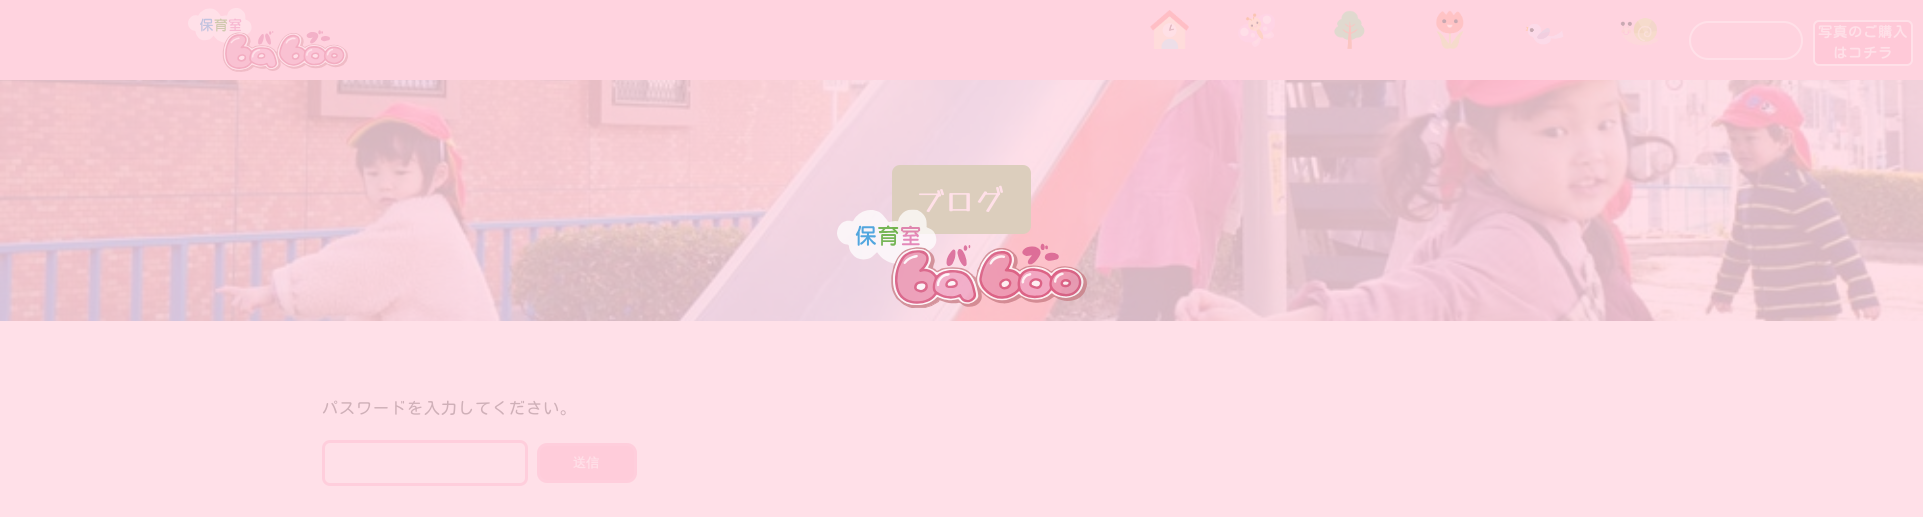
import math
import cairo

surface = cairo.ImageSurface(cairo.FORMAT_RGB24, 1923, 517)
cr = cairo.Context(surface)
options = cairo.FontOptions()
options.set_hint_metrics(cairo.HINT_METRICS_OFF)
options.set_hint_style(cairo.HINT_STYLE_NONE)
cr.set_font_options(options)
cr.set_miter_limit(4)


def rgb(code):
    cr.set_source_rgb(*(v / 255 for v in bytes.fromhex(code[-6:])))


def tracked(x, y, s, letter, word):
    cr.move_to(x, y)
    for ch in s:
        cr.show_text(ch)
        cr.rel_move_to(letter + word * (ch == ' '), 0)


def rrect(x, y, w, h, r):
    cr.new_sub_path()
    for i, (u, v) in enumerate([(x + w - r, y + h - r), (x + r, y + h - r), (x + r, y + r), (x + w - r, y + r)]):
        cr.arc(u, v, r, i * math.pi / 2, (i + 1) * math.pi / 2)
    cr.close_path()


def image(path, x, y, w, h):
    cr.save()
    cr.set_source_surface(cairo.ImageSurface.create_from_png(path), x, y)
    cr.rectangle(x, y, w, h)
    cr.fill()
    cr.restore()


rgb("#ffe0e8")
cr.paint()
rgb("#ffd3df")
cr.rectangle(0, 0, 1923, 80)
cr.fill()
image("img/1.png", 188, 8, 160, 64)
image("img/2.png", 1150, 10, 39, 39)
image("img/3.png", 1238, 13, 37, 34)
image("img/4.png", 1334, 10, 31, 39)
image("img/5.png", 1436, 10, 28, 39)
image("img/6.png", 1525, 24, 39, 21)
image("img/7.png", 1620, 18, 39, 28)
rrect(1690, 22, 112, 37, 18.5)
rgb("#ffe0e8")
cr.stroke()
rgb("#ffc9d8")
rrect(1814, 21, 98, 44, 5)
cr.fill_preserve()
rgb("#ffe0e8")
cr.stroke()
image("img/8.png", 0, 80, 1923, 241)
rgb("#dccebd")
rrect(892, 165, 139, 69, 8)
cr.fill()
rrect(323.5, 441.5, 203, 43, 6.5)
rgb("#ffcedc")
cr.set_line_width(3)
cr.stroke()
rgb("#ffccda")
rrect(538.5, 444.5, 97, 37, 8.5)
cr.fill_preserve()
rgb("#ffcedc")
cr.stroke()
cr.select_font_face("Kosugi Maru", cairo.FONT_SLANT_NORMAL, cairo.FONT_WEIGHT_BOLD)
cr.set_font_size(14)
rgb("#ffe0e8")
tracked(1818, 37, "写真のご購入", 1, 0)
tracked(1833, 58, "はコチラ", 1, 0)
cr.select_font_face("Yusei Magic")
cr.set_font_size(27)
tracked(917, 211, "ブログ", 3, 0)
cr.select_font_face("Kosugi Maru")
cr.set_font_size(16)
rgb("#cfb0b8")
tracked(322, 414, "パスワードを入力してください。", 1, 0)
cr.select_font_face("WenQuanYi Zen Hei", cairo.FONT_SLANT_NORMAL, cairo.FONT_WEIGHT_BOLD)
cr.set_font_size(13)
rgb("#ffe0e8")
cr.move_to(573, 467)
cr.show_text("送信")
image("img/9.png", 837, 209, 250, 99)
surface.write_to_png("page.png")
